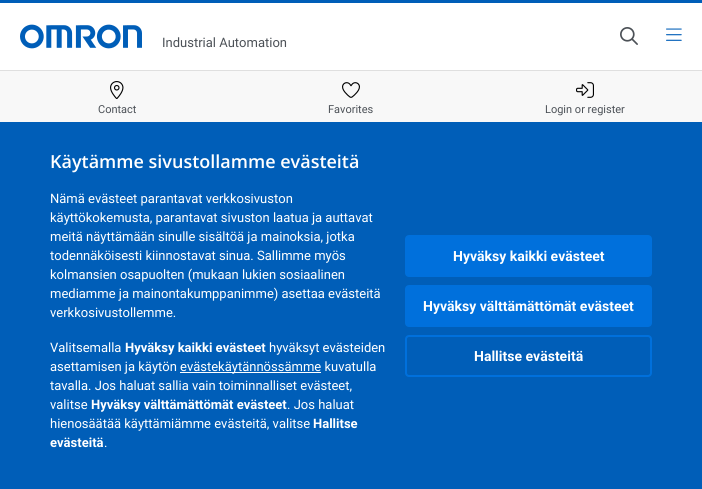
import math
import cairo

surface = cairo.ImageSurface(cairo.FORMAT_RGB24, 702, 489)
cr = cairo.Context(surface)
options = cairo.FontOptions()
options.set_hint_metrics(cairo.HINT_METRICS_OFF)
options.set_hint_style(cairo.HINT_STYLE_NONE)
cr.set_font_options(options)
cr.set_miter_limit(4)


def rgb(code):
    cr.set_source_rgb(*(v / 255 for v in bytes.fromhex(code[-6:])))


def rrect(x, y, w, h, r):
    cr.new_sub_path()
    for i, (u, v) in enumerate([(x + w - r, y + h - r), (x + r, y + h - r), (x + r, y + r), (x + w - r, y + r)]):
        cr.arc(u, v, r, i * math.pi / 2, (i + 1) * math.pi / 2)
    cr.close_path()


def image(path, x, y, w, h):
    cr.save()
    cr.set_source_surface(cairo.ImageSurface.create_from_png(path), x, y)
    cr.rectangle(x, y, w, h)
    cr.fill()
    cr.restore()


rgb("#ffffff")
cr.paint()
rgb("#005eb8")
cr.rectangle(0, 0, 702, 3)
cr.fill()
image("img/1.png", 20, 24, 122, 25)
image("img/2.png", 620, 27, 18, 18)
image("img/3.png", 666, 28, 16, 13)
rgb("#f8f8f8")
cr.rectangle(0, 71, 702, 51)
cr.fill()
rgb("#dfdfdf")
cr.rectangle(0, 70, 702, 1)
cr.fill()
image("img/4.png", 110, 81, 14, 18)
image("img/5.png", 342, 82, 18, 16)
image("img/6.png", 576, 82, 18, 16)
rgb("#005eb8")
cr.rectangle(0, 122, 702, 367)
cr.fill()
rgb("#ffffff")
cr.rectangle(180, 372, 141, 1)
cr.fill()
rgb("#0070dc")
rrect(406, 236, 245, 40, 3)
cr.fill_preserve()
cr.stroke()
rrect(406, 286, 245, 40, 3)
cr.fill_preserve()
cr.stroke()
rrect(406, 336, 245, 40, 3)
cr.stroke()
cr.select_font_face("Roboto")
cr.set_font_size(13)
rgb("#4c5157")
cr.move_to(162, 47)
cr.show_text("Industrial Automation")
cr.set_font_size(11)
for x, y, s in [
    (98, 113, "Contact"),
    (328, 113, "Favorites"),
    (545, 113, "Login or register"),
]:
    cr.move_to(x, y)
    cr.show_text(s)
cr.select_font_face("Open Sans SemiBold")
cr.set_font_size(18)
rgb("#ffffff")
cr.move_to(50, 168)
cr.show_text("Käytämme sivustollamme evästeitä")
cr.select_font_face("Roboto")
cr.set_font_size(13)
for x, y, s in [
    (50, 203, "Nämä evästeet parantavat verkkosivuston"),
    (50, 222, "käyttökokemusta, parantavat sivuston laatua ja auttavat"),
    (50, 241, "meitä näyttämään sinulle sisältöä ja mainoksia, jotka"),
    (50, 260, "todennäköisesti kiinnostavat sinua. Sallimme myös"),
    (50, 279, "kolmansien osapuolten (mukaan lukien sosiaalinen"),
    (50, 298, "mediamme ja mainontakumppanimme) asettaa evästeitä"),
    (50, 317, "verkkosivustollemme."),
    (50, 352, "Valitsemalla"),
]:
    cr.move_to(x, y)
    cr.show_text(s)
cr.select_font_face("Roboto", cairo.FONT_SLANT_NORMAL, cairo.FONT_WEIGHT_BOLD)
cr.move_to(125, 352)
cr.show_text("Hyväksy kaikki evästeet")
cr.select_font_face("Roboto")
for x, y, s in [
    (269, 352, "hyväksyt evästeiden"),
    (50, 371, "asettamisen ja käytön"),
    (180, 371, "evästekäytännössämme kuvatulla"),
    (50, 390, "tavalla. Jos haluat sallia vain toiminnalliset evästeet,"),
    (50, 409, "valitse"),
]:
    cr.move_to(x, y)
    cr.show_text(s)
cr.select_font_face("Roboto", cairo.FONT_SLANT_NORMAL, cairo.FONT_WEIGHT_BOLD)
cr.move_to(91, 409)
cr.show_text("Hyväksy välttämättömät evästeet")
cr.select_font_face("Roboto")
cr.move_to(287, 409)
cr.show_text(". Jos haluat")
cr.move_to(50, 428)
cr.show_text("hienosäätää käyttämiämme evästeitä, valitse")
cr.select_font_face("Roboto", cairo.FONT_SLANT_NORMAL, cairo.FONT_WEIGHT_BOLD)
cr.move_to(313, 428)
cr.show_text("Hallitse")
cr.move_to(50, 447)
cr.show_text("evästeitä")
cr.select_font_face("Roboto")
cr.move_to(104, 447)
cr.show_text(".")
cr.select_font_face("Roboto", cairo.FONT_SLANT_NORMAL, cairo.FONT_WEIGHT_BOLD)
cr.set_font_size(14)
for x, y, s in [
    (453, 261, "Hyväksy kaikki evästeet"),
    (423, 311, "Hyväksy välttämättömät evästeet"),
    (474, 361, "Hallitse evästeitä"),
]:
    cr.move_to(x, y)
    cr.show_text(s)
surface.write_to_png("page.png")
